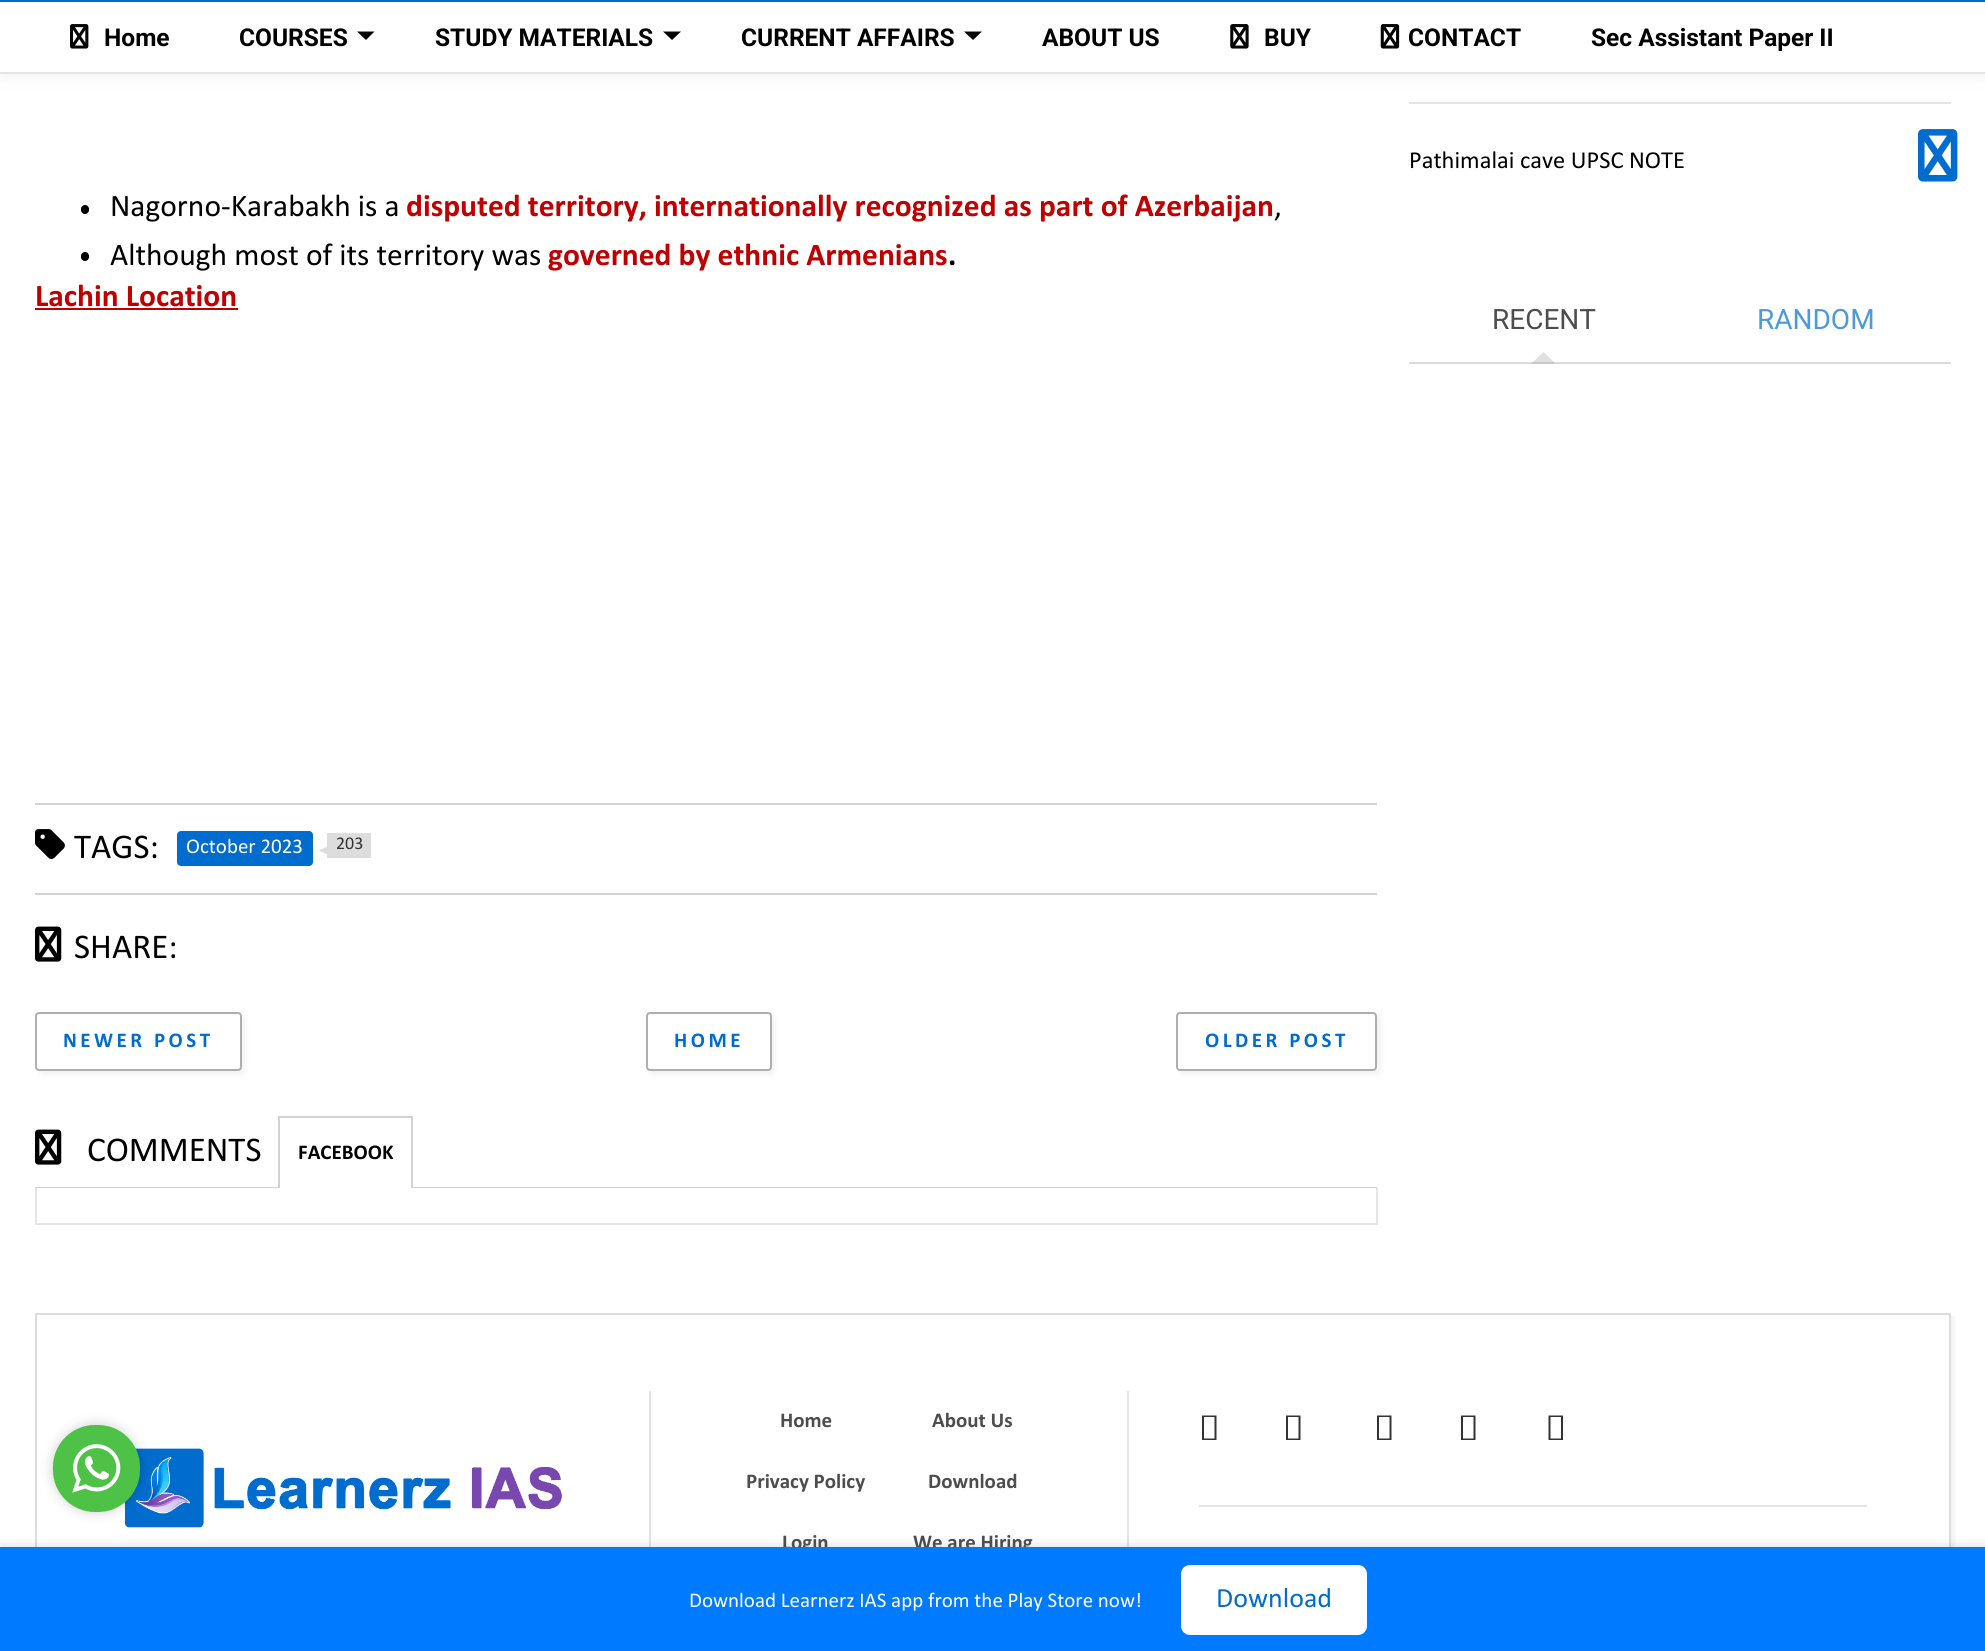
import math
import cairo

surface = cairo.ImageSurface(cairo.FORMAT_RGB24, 1985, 1651)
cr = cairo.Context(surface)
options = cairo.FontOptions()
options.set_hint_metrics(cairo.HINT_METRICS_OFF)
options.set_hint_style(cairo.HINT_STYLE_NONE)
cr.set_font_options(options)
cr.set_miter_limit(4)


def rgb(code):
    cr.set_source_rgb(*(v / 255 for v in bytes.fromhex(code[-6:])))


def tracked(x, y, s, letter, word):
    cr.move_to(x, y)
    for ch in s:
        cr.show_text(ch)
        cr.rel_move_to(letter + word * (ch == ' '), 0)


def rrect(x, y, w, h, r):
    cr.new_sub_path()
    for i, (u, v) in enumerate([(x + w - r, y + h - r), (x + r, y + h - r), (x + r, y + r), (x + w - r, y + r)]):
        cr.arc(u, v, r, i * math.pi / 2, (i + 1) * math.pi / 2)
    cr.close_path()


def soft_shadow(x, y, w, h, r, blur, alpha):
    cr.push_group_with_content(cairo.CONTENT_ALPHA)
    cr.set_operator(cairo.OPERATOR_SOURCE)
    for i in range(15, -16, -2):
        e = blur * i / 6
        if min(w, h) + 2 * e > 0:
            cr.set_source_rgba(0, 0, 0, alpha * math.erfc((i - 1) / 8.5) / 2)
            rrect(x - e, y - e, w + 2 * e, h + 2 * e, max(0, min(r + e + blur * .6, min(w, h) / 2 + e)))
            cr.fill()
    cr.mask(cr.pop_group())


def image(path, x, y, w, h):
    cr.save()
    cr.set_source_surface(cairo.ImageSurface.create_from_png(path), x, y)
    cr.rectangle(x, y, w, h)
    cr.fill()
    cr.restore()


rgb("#ffffff")
cr.paint()
rgb("#787878")
soft_shadow(0, 0, 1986, 74, 0, 9, 0.12)
for x, y, w, h, color in [
    (0, 2, 1985, 70, "#ffffff"),
    (0, 0, 1985, 2, "#006dce"),
    (0, 72, 1985, 2, "#e4e4e4"),
]:
    rgb(color)
    cr.rectangle(x, y, w, h)
    cr.fill()
image("img/1.png", 70, 24, 19, 25)
rgb("#000000")
cr.new_path()
cr.move_to(357, 31.5)
cr.line_to(374.5, 31.5)
cr.line_to(366, 40)
cr.close_path()
cr.fill()
cr.new_path()
cr.move_to(663, 31.5)
cr.line_to(681, 31.5)
cr.line_to(672, 40)
cr.close_path()
cr.fill()
cr.new_path()
cr.move_to(964, 31.5)
cr.line_to(982, 31.5)
cr.line_to(973, 40)
cr.close_path()
cr.fill()
image("img/2.png", 1230, 24, 19, 25)
image("img/3.png", 1380, 24, 20, 25)
rrect(81, 205, 8, 9, 4)
cr.fill()
rrect(81, 252, 8, 9, 4)
cr.fill()
rgb("#c00000")
cr.rectangle(35, 308, 203, 2)
cr.fill()
rgb("#d2d2d2")
cr.rectangle(35, 803, 1342, 2)
cr.fill()
image("img/4.png", 35, 829, 30, 30)
rgb("#006dce")
rrect(177, 831, 136, 35, 4)
cr.fill()
rgb("#dddddd")
cr.rectangle(327, 833, 44, 25)
cr.fill()
cr.new_path()
cr.move_to(331, 845)
cr.line_to(331, 856)
cr.line_to(318.5, 850.5)
cr.close_path()
cr.fill()
rgb("#d2d2d2")
cr.rectangle(35, 893, 1342, 2)
cr.fill()
image("img/5.png", 35, 926, 27, 36)
rgb("#000000")
soft_shadow(39, 1015, 206, 60, 4, 2.5, 0.05)
rgb("#ffffff")
rrect(35, 1012, 207, 59, 4)
cr.fill()
rrect(36, 1013, 205, 57, 3)
cr.set_source_rgba(0.471, 0.471, 0.471, 0.6)
cr.stroke()
rgb("#000000")
soft_shadow(649, 1015, 126, 60, 4, 2.5, 0.05)
rgb("#ffffff")
rrect(647, 1013, 124, 57, 3)
cr.fill_preserve()
rgb("#aeaeae")
cr.stroke()
cr.save()
cr.set_fill_rule(cairo.FILL_RULE_EVEN_ODD)
cr.new_path()
cr.move_to(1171, 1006)
cr.line_to(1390, 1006)
cr.line_to(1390, 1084)
cr.line_to(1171, 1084)
cr.close_path()
cr.move_to(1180, 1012)
cr.line_to(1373, 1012)
cr.curve_to(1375, 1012, 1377, 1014, 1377, 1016)
cr.line_to(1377, 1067)
cr.curve_to(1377, 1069, 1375, 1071, 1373, 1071)
cr.line_to(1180, 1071)
cr.curve_to(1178, 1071, 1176, 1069, 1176, 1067)
cr.line_to(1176, 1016)
cr.curve_to(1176, 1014, 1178, 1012, 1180, 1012)
cr.close_path()
cr.clip()
rgb("#000000")
soft_shadow(1180, 1015, 201, 60, 4, 2.5, 0.05)
cr.restore()
rrect(1177, 1013, 199, 57, 3)
cr.stroke()
image("img/5.png", 35, 1129, 27, 36)
rgb("#d2d2d2")
cr.rectangle(35, 1187, 1342, 1)
cr.fill()
rgb("#ffffff")
cr.rectangle(278, 1187, 135, 1)
cr.fill()
rgb("#d2d2d2")
cr.new_path()
cr.move_to(278, 1116)
cr.line_to(413, 1116)
cr.line_to(411, 1118)
cr.line_to(280, 1118)
cr.close_path()
cr.fill()
cr.set_source_rgba(0.471, 0.471, 0.471, 0.33)
cr.new_path()
cr.move_to(413, 1116)
cr.line_to(413, 1188)
cr.line_to(411, 1188)
cr.line_to(411, 1118)
cr.close_path()
cr.fill()
cr.new_path()
cr.move_to(278, 1188)
cr.line_to(278, 1116)
cr.line_to(280, 1118)
cr.line_to(280, 1188)
cr.close_path()
cr.fill()
for x, y, w, h, color in [
    (1376, 1188, 2, 37, "#e5e5e5"),
    (35, 1223, 1342, 2, "#e5e5e5"),
    (35, 1188, 2, 37, "#e5e5e5"),
]:
    rgb(color)
    cr.rectangle(x, y, w, h)
    cr.fill()
cr.save()
cr.rectangle(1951, 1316, 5, 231)
cr.clip()
rgb("#000000")
soft_shadow(39, 1316, 1916, 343, 0, 2.5, 0.05)
cr.restore()
cr.rectangle(36, 1314, 1914, 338)
rgb("#dddddd")
cr.stroke()
rgb("#e4e4e4")
cr.rectangle(649, 1391, 2, 156)
cr.fill()
cr.rectangle(1127, 1391, 2, 156)
cr.fill()
rgb("#000000")
soft_shadow(0, 1544, 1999, 105, 0, 4.5, 0.1)
rgb("#e4e4e4")
cr.rectangle(1409, 102, 542, 2)
cr.fill()
image("img/6.png", 1918, 129, 40, 53)
rgb("#dbdbdb")
cr.rectangle(1409, 362, 542, 2)
cr.fill()
cr.set_source_rgba(0.631, 0.631, 0.631, 0.33)
cr.new_path()
cr.move_to(1556, 364)
cr.line_to(1531, 364)
cr.line_to(1543.5, 352)
cr.close_path()
cr.fill()
image("img/7.png", 124, 1448, 438, 80)
rgb("#e4e4e4")
cr.rectangle(1199, 1505, 668, 2)
cr.fill()
rgb("#333333")
cr.new_path()
cr.move_to(1202, 1440)
cr.line_to(1202, 1415.5)
cr.line_to(1216.5, 1415.5)
cr.line_to(1216.5, 1440)
cr.close_path()
cr.move_to(1204, 1438.5)
cr.line_to(1214.5, 1438.5)
cr.line_to(1214.5, 1417)
cr.line_to(1204, 1417)
cr.close_path()
cr.fill()
cr.new_path()
cr.move_to(1286, 1440)
cr.line_to(1286, 1415.5)
cr.line_to(1300.5, 1415.5)
cr.line_to(1300.5, 1440)
cr.close_path()
cr.move_to(1288, 1438.5)
cr.line_to(1298.5, 1438.5)
cr.line_to(1298.5, 1417)
cr.line_to(1288, 1417)
cr.close_path()
cr.fill()
cr.new_path()
cr.move_to(1377, 1440)
cr.line_to(1377, 1415.5)
cr.line_to(1391.5, 1415.5)
cr.line_to(1391.5, 1440)
cr.close_path()
cr.move_to(1379, 1438.5)
cr.line_to(1389.5, 1438.5)
cr.line_to(1389.5, 1417)
cr.line_to(1379, 1417)
cr.close_path()
cr.fill()
cr.new_path()
cr.move_to(1461, 1440)
cr.line_to(1461, 1415.5)
cr.line_to(1475.5, 1415.5)
cr.line_to(1475.5, 1440)
cr.close_path()
cr.move_to(1463, 1438.5)
cr.line_to(1473.5, 1438.5)
cr.line_to(1473.5, 1417)
cr.line_to(1463, 1417)
cr.close_path()
cr.fill()
cr.new_path()
cr.move_to(1548.5, 1440)
cr.line_to(1548.5, 1415.5)
cr.line_to(1563, 1415.5)
cr.line_to(1563, 1440)
cr.close_path()
cr.move_to(1550.5, 1438.5)
cr.line_to(1561, 1438.5)
cr.line_to(1561, 1417)
cr.line_to(1550.5, 1417)
cr.close_path()
cr.fill()
rgb("#000000")
soft_shadow(53, 1425, 87, 87, 42, 6, 0.2)
rgb("#4dc247")
rrect(53, 1425, 87, 87, 42)
cr.fill()
image("img/8.png", 72, 1444, 49, 49)
cr.select_font_face("Roboto", cairo.FONT_SLANT_NORMAL, cairo.FONT_WEIGHT_BOLD)
cr.set_font_size(24.5)
rgb("#000000")
for x, y, s in [
    (104, 46, "Home"),
    (239, 46, "COURSES"),
    (435, 46, "STUDY MATERIALS"),
    (741, 46, "CURRENT AFFAIRS"),
    (1042, 46, "ABOUT US"),
    (1264, 46, "BUY"),
    (1408, 46, "CONTACT"),
    (1591, 46, "Sec Assistant Paper II"),
]:
    cr.move_to(x, y)
    cr.show_text(s)
cr.select_font_face("Calibri")
cr.set_font_size(31.5)
cr.move_to(110, 216)
cr.show_text("Nagorno-Karabakh is a")
cr.select_font_face("Calibri", cairo.FONT_SLANT_NORMAL, cairo.FONT_WEIGHT_BOLD)
rgb("#c00000")
cr.move_to(406, 216)
cr.show_text("disputed territory, internationally recognized as part of Azerbaijan")
cr.select_font_face("Calibri")
rgb("#000000")
cr.move_to(1274, 216)
cr.show_text(",")
cr.move_to(110, 265)
cr.show_text("Although most of its territory was")
cr.select_font_face("Calibri", cairo.FONT_SLANT_NORMAL, cairo.FONT_WEIGHT_BOLD)
rgb("#c00000")
cr.move_to(548, 265)
cr.show_text("governed by ethnic Armenians")
rgb("#000000")
cr.move_to(948, 265)
cr.show_text(".")
rgb("#c00000")
cr.move_to(35, 306)
cr.show_text("Lachin Location")
cr.select_font_face("Calibri")
cr.set_font_size(35)
rgb("#000000")
cr.move_to(74, 858)
cr.show_text("TAGS:")
cr.set_font_size(21)
rgb("#ffffff")
cr.move_to(186, 853)
cr.show_text("October 2023")
cr.set_font_size(18)
rgb("#333333")
cr.move_to(336, 849)
cr.show_text("203")
cr.set_font_size(35)
rgb("#000000")
cr.move_to(74, 958)
cr.show_text("SHARE:")
cr.select_font_face("Calibri", cairo.FONT_SLANT_NORMAL, cairo.FONT_WEIGHT_BOLD)
cr.set_font_size(21)
rgb("#006dce")
for x, y, s in [
    (63, 1047, "NEWER POST"),
    (674, 1047, "HOME"),
    (1205, 1047, "OLDER POST"),
]:
    tracked(x, y, s, 3.5, 0)
cr.select_font_face("Calibri")
cr.set_font_size(35)
rgb("#000000")
cr.move_to(87, 1161)
cr.show_text("COMMENTS")
cr.select_font_face("Calibri", cairo.FONT_SLANT_NORMAL, cairo.FONT_WEIGHT_BOLD)
cr.set_font_size(21)
cr.move_to(298, 1159)
cr.show_text("FACEBOOK")
cr.select_font_face("Calibri")
cr.set_font_size(24.5)
cr.move_to(1409, 168)
cr.show_text("Pathimalai cave UPSC NOTE")
cr.select_font_face("Roboto")
cr.set_font_size(28)
rgb("#4d4d4d")
cr.move_to(1492, 329)
cr.show_text("RECENT")
rgb("#4d99dd")
cr.move_to(1757, 329)
cr.show_text("RANDOM")
cr.select_font_face("Calibri", cairo.FONT_SLANT_NORMAL, cairo.FONT_WEIGHT_BOLD)
cr.set_font_size(21)
rgb("#4d4d4d")
for x, y, s in [
    (780, 1427, "Home"),
    (932, 1427, "About Us"),
    (746, 1488, "Privacy Policy"),
    (928, 1488, "Download"),
    (782, 1549, "Login"),
    (913, 1549, "We are Hiring"),
]:
    cr.move_to(x, y)
    cr.show_text(s)
rgb("#007bff")
cr.rectangle(0, 1547, 1985, 104)
cr.fill()
rgb("#ffffff")
rrect(1181, 1565, 186, 70, 9)
cr.fill()
cr.select_font_face("Calibri")
cr.set_font_size(28)
rgb("#006dce")
cr.move_to(1216, 1607)
cr.show_text("Download")
cr.set_font_size(21)
rgb("#ffffff")
cr.move_to(689, 1607)
cr.show_text("Download Learnerz IAS app from the Play Store now!")
surface.write_to_png("page.png")
